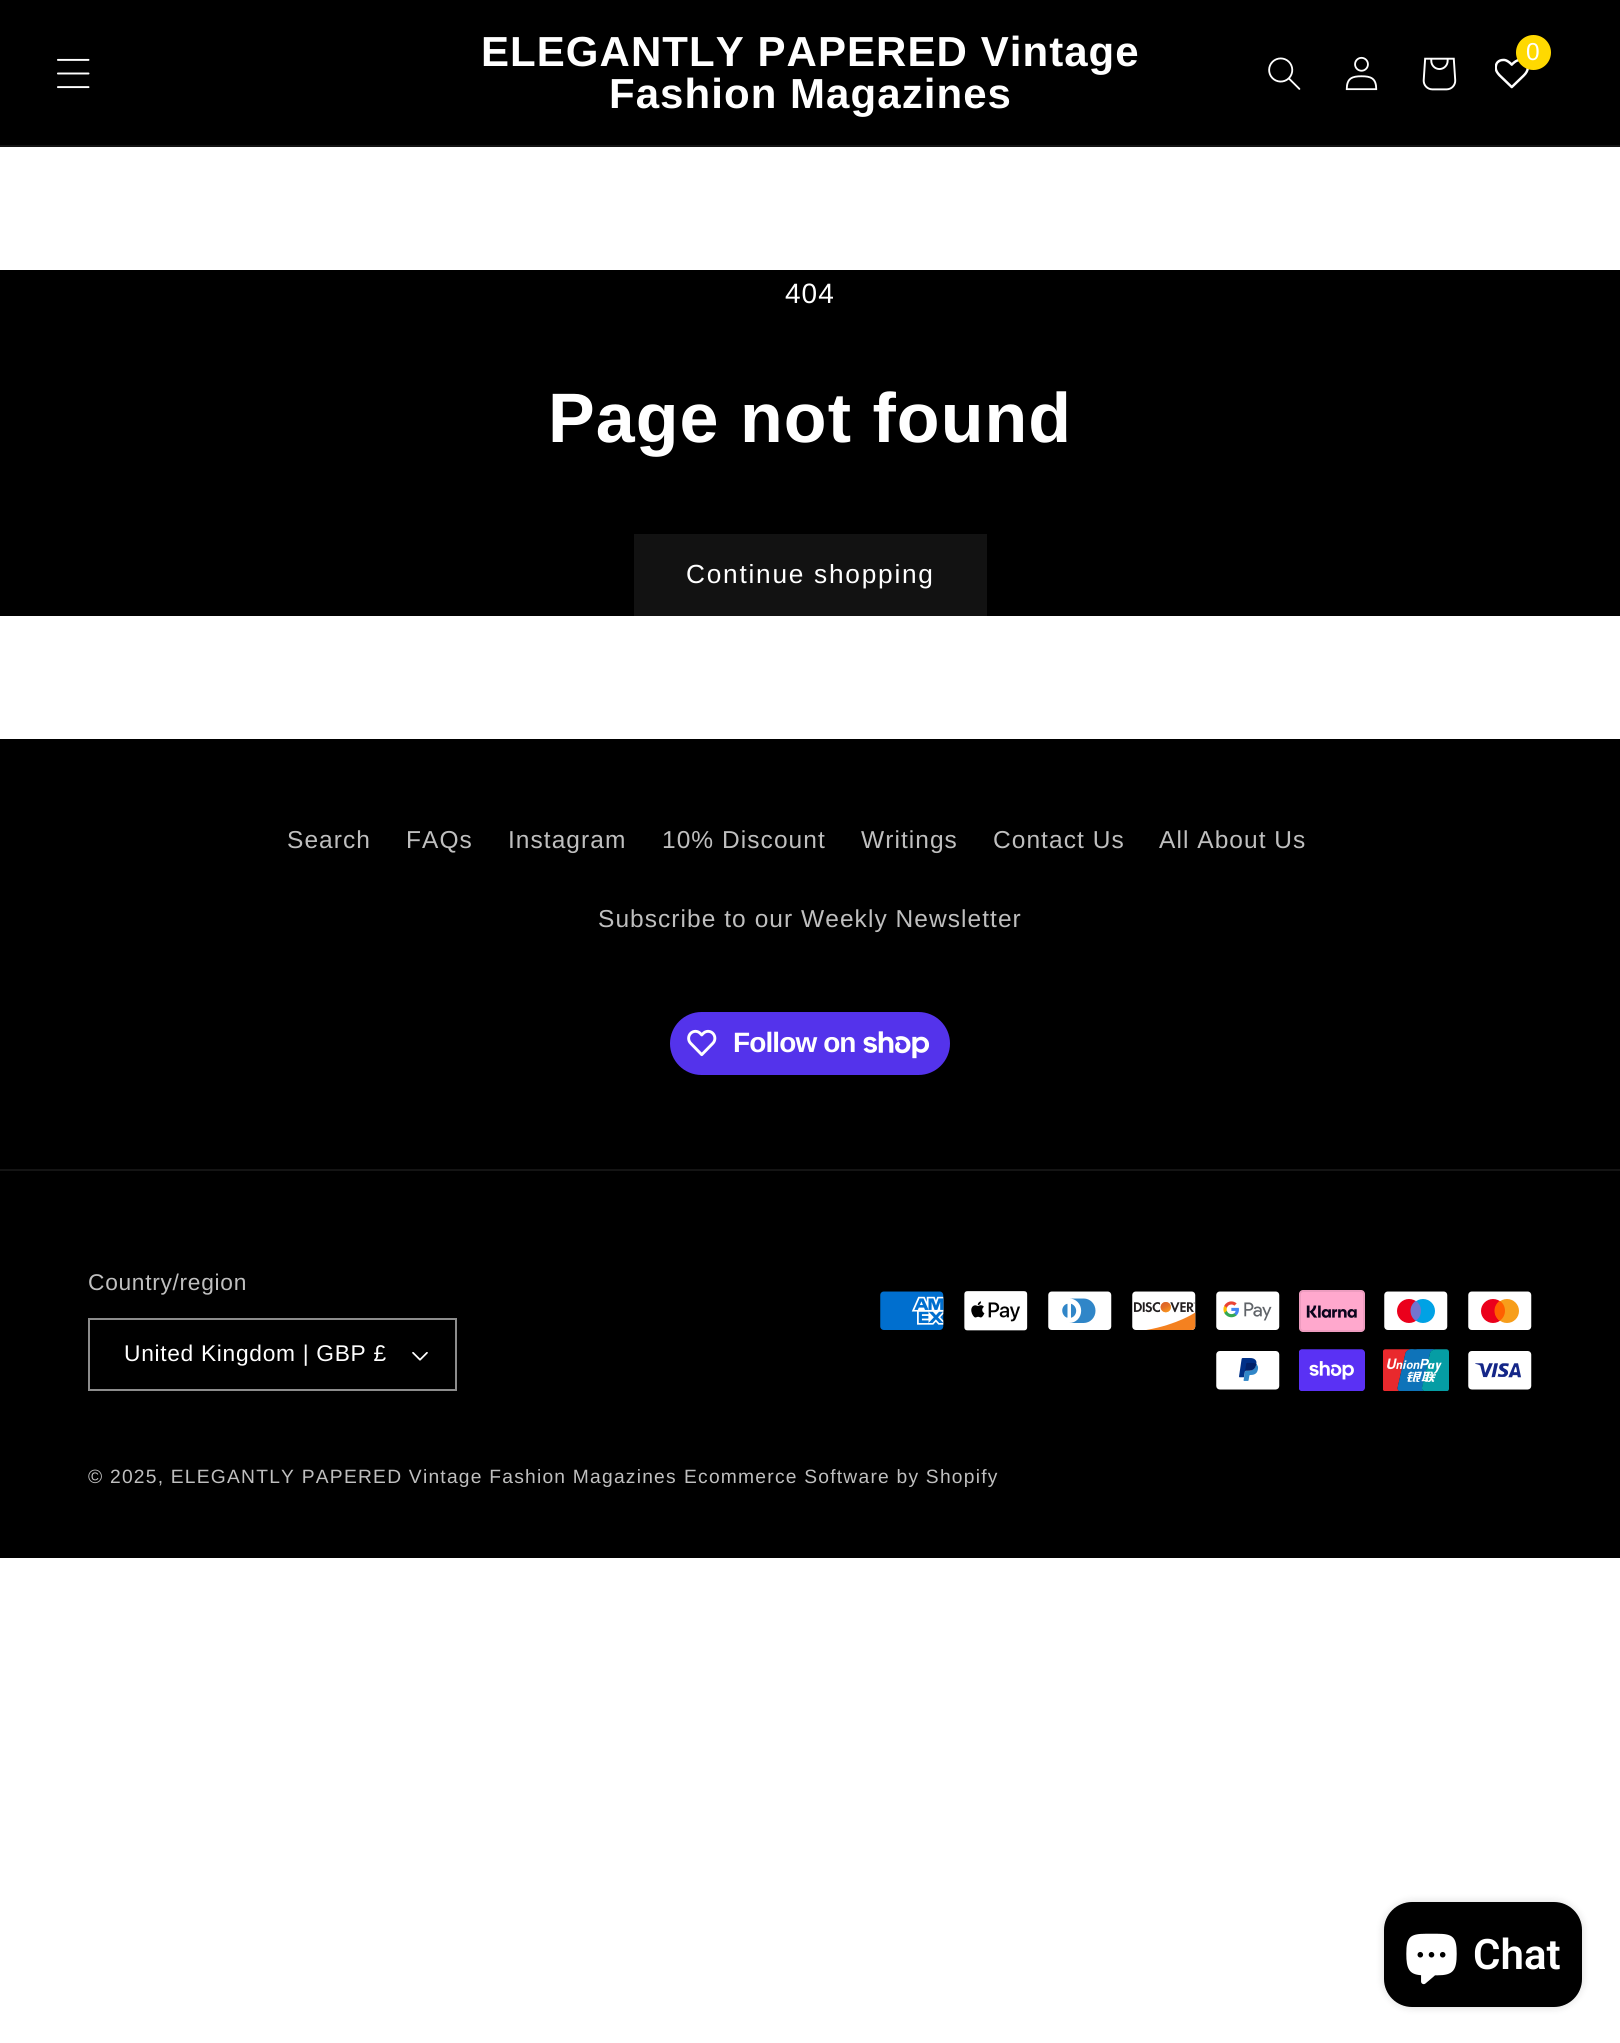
import math
import cairo

surface = cairo.ImageSurface(cairo.FORMAT_RGB24, 1620, 2043)
cr = cairo.Context(surface)
options = cairo.FontOptions()
options.set_hint_metrics(cairo.HINT_METRICS_OFF)
options.set_hint_style(cairo.HINT_STYLE_NONE)
cr.set_font_options(options)
cr.set_miter_limit(4)


def rgb(code):
    cr.set_source_rgb(*(v / 255 for v in bytes.fromhex(code[-6:])))


def tracked(x, y, s, letter, word):
    cr.move_to(x, y)
    for ch in s:
        cr.show_text(ch)
        cr.rel_move_to(letter + word * (ch == ' '), 0)


def rrect(x, y, w, h, r):
    cr.new_sub_path()
    for i, (u, v) in enumerate([(x + w - r, y + h - r), (x + r, y + h - r), (x + r, y + r), (x + w - r, y + r)]):
        cr.arc(u, v, r, i * math.pi / 2, (i + 1) * math.pi / 2)
    cr.close_path()


def soft_shadow(x, y, w, h, r, blur, alpha):
    cr.push_group_with_content(cairo.CONTENT_ALPHA)
    cr.set_operator(cairo.OPERATOR_SOURCE)
    for i in range(15, -16, -2):
        e = blur * i / 6
        if min(w, h) + 2 * e > 0:
            cr.set_source_rgba(0, 0, 0, alpha * math.erfc((i - 1) / 8.5) / 2)
            rrect(x - e, y - e, w + 2 * e, h + 2 * e, max(0, min(r + e + blur * .6, min(w, h) / 2 + e)))
            cr.fill()
    cr.mask(cr.pop_group())


def image(path, x, y, w, h):
    cr.save()
    cr.set_source_surface(cairo.ImageSurface.create_from_png(path), x, y)
    cr.rectangle(x, y, w, h)
    cr.fill()
    cr.restore()


rgb("#ffffff")
cr.paint()
rgb("#000000")
cr.rectangle(0, 0, 1620, 145)
cr.fill()
rgb("#141414")
cr.rectangle(0, 145, 1620, 2)
cr.fill()
image("img/1.png", 1495, 58, 34, 31)
rgb("#ffd900")
cr.arc(1533.5, 52.5, 17.5, 0, 2 * math.pi)
cr.fill()
image("img/2.png", 1268, 57, 33, 33)
image("img/3.png", 1345, 56, 33, 35)
image("img/4.png", 1422, 57, 35, 34)
image("img/5.png", 57, 58, 33, 31)
for x, y, w, h, color in [
    (0, 270, 1620, 346, "#000000"),
    (634, 534, 353, 82, "#121212"),
    (0, 739, 1620, 819, "#000000"),
]:
    rgb(color)
    cr.rectangle(x, y, w, h)
    cr.fill()
rgb("#5433eb")
rrect(670, 1012, 280, 63, 31.5)
cr.fill()
image("img/6.png", 687, 1029, 30, 28)
image("img/7.png", 863, 1031, 66, 28)
rgb("#141414")
cr.rectangle(0, 1169, 1620, 2)
cr.fill()
image("img/8.png", 412, 1352, 16, 9)
cr.rectangle(89, 1319, 367, 71)
rgb("#8c8c8c")
cr.stroke()
image("img/9.png", 880, 1291, 64, 39)
image("img/10.png", 964, 1291, 64, 40)
image("img/11.png", 1048, 1291, 64, 39)
image("img/12.png", 1132, 1291, 64, 39)
image("img/13.png", 1216, 1291, 64, 39)
image("img/14.png", 1299, 1290, 66, 42)
image("img/15.png", 1384, 1291, 64, 39)
image("img/16.png", 1468, 1291, 64, 39)
image("img/17.png", 1216, 1351, 64, 39)
image("img/18.png", 1299, 1349, 66, 42)
image("img/19.png", 1383, 1349, 66, 42)
image("img/20.png", 1468, 1351, 64, 39)
rgb("#000000")
soft_shadow(1384, 1902, 198, 105, 28, 4.5, 0.15)
rgb("#000000")
rrect(1384, 1902, 198, 105, 28)
cr.fill()
image("img/21.png", 1406, 1933, 51, 52)
cr.select_font_face("Liberation Sans", cairo.FONT_SLANT_NORMAL, cairo.FONT_WEIGHT_BOLD)
cr.set_font_size(42)
rgb("#ffffff")
tracked(481, 66, "ELEGANTLY PAPERED Vintage", 1.05, 0)
tracked(609, 108, "Fashion Magazines", 1.05, 0)
cr.select_font_face("Liberation Sans")
cr.set_font_size(24.5)
cr.move_to(1526, 60)
cr.show_text("0")
cr.set_font_size(28)
tracked(785, 303, "404", 1.05, 0)
cr.select_font_face("Liberation Sans", cairo.FONT_SLANT_NORMAL, cairo.FONT_WEIGHT_BOLD)
cr.set_font_size(70)
tracked(548, 442, "Page not found", 1.05, 0)
cr.select_font_face("Liberation Sans")
cr.set_font_size(26.25)
tracked(686, 583, "Continue shopping", 1.75, 0)
cr.set_font_size(24.5)
rgb("#bfbfbf")
for x, y, s in [
    (287, 848, "Search"),
    (406, 848, "FAQs"),
    (508, 848, "Instagram"),
    (662, 848, "10% Discount"),
    (861, 848, "Writings"),
    (993, 848, "Contact Us"),
    (1159, 848, "All About Us"),
    (598, 927, "Subscribe to our Weekly Newsletter"),
]:
    tracked(x, y, s, 1.05, 0)
cr.select_font_face("Liberation Sans", cairo.FONT_SLANT_NORMAL, cairo.FONT_WEIGHT_BOLD)
cr.set_font_size(28)
rgb("#ffffff")
tracked(733, 1052, "Follow on", -0.9, 0)
cr.select_font_face("Liberation Sans")
cr.set_font_size(22.75)
rgb("#bfbfbf")
tracked(88, 1290, "Country/region", 0.7, 0)
rgb("#ffffff")
tracked(124, 1361, "United Kingdom | GBP £", 0.7, 0)
cr.set_font_size(19.25)
rgb("#bfbfbf")
tracked(88, 1483, "© 2025, ELEGANTLY PAPERED Vintage Fashion Magazines", 1.22, 0)
tracked(684, 1483, "Ecommerce Software by Shopify", 1.22, 0)
cr.select_font_face("Roboto SemiBold")
cr.set_font_size(42)
rgb("#ffffff")
cr.move_to(1473, 1969)
cr.show_text("Chat")
surface.write_to_png("page.png")
